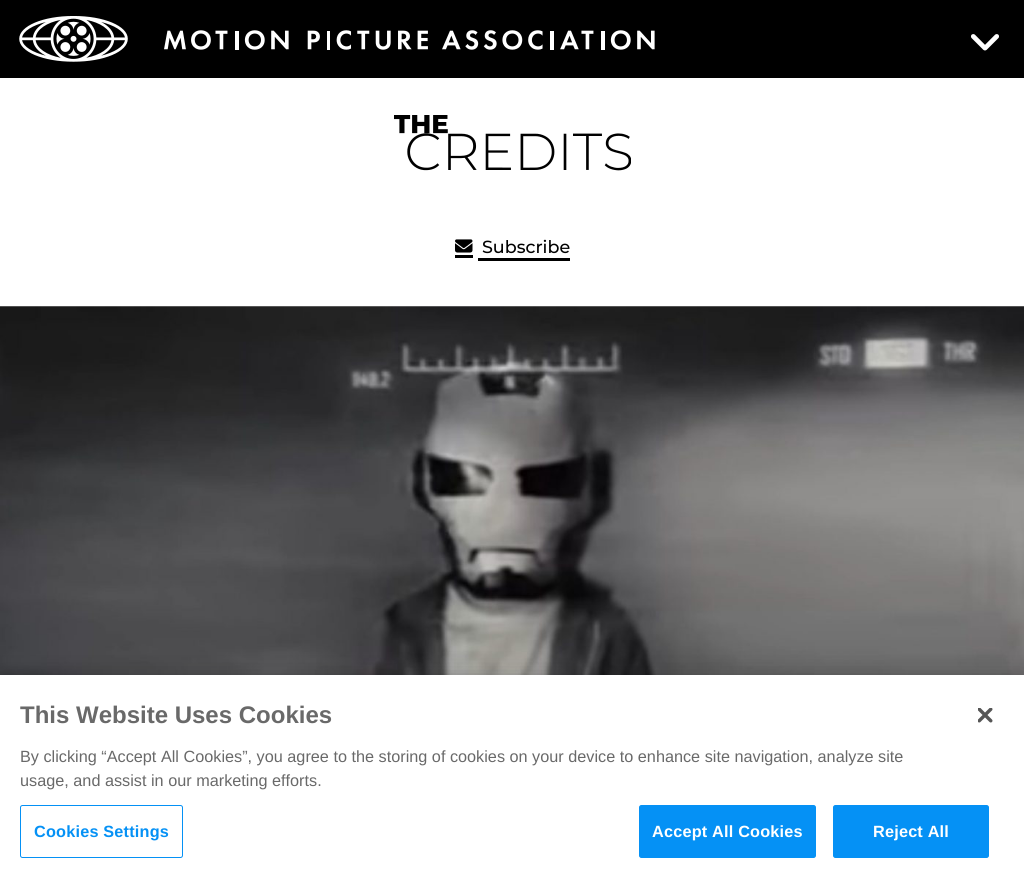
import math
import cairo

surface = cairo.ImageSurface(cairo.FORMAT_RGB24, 1024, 882)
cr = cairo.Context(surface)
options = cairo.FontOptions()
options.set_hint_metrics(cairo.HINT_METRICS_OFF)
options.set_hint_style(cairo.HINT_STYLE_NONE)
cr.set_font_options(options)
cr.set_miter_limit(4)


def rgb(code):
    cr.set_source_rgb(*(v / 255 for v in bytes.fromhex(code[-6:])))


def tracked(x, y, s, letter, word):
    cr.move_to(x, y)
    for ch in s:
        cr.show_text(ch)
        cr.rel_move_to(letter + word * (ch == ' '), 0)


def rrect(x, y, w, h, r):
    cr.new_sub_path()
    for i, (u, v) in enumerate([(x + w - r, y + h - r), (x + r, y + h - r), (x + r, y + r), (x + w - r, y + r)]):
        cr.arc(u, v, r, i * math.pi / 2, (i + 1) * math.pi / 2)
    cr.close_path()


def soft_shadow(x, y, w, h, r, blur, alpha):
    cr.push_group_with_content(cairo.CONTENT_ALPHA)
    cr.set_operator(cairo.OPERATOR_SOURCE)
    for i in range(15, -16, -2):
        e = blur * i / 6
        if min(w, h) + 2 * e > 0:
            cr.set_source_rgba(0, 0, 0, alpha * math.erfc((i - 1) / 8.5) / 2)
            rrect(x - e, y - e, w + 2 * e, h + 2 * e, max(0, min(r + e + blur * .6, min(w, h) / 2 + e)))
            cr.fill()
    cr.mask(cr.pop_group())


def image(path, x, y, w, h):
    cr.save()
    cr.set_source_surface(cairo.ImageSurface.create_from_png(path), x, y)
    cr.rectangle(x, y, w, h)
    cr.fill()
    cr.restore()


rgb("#ffffff")
cr.paint()
rgb("#000000")
cr.rectangle(0, 0, 1024, 78)
cr.fill()
image("img/1.png", 19, 16, 636, 46)
image("img/2.png", 971, 34, 28, 17)
image("img/3.png", 394, 115, 237, 56)
cr.rectangle(455, 255, 18, 3)
cr.fill()
cr.rectangle(478, 258, 92, 3)
cr.fill()
image("img/4.png", 455, 239, 18, 14)
image("img/5.png", 0, 306, 1024, 369)
rgb("#000000")
soft_shadow(0, 675, 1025, 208, 0, 11, 0.2)
rgb("#ffffff")
cr.rectangle(0, 675, 1024, 207)
cr.fill()
rrect(20.5, 805.5, 162, 52, 2)
rgb("#0591f5")
cr.set_line_width(1)
cr.stroke()
rrect(639.5, 805.5, 176, 52, 2)
cr.fill_preserve()
cr.stroke()
rrect(833.5, 805.5, 155, 52, 2)
cr.fill_preserve()
cr.stroke()
image("img/6.png", 978, 708, 15, 15)
cr.select_font_face("Montserrat Medium")
cr.set_font_size(17.5)
rgb("#000000")
cr.move_to(482, 253)
cr.show_text("Subscribe")
cr.select_font_face("Liberation Sans", cairo.FONT_SLANT_NORMAL, cairo.FONT_WEIGHT_BOLD)
cr.set_font_size(24)
rgb("#696969")
cr.move_to(20, 723)
cr.show_text("This Website Uses Cookies")
cr.select_font_face("Liberation Sans")
cr.set_font_size(16.25)
cr.move_to(20, 762)
cr.show_text("By clicking “Accept All Cookies”, you agree to the storing of cookies on your device to enhance site navigation, analyze site")
cr.move_to(20, 786)
cr.show_text("usage, and assist in our marketing efforts.")
cr.select_font_face("Liberation Sans", cairo.FONT_SLANT_NORMAL, cairo.FONT_WEIGHT_BOLD)
rgb("#0591f5")
tracked(34, 837, "Cookies Settings", 0.2, 0)
rgb("#ffffff")
tracked(652, 837, "Accept All Cookies", 0.2, 0)
tracked(873, 837, "Reject All", 0.2, 0)
surface.write_to_png("page.png")
